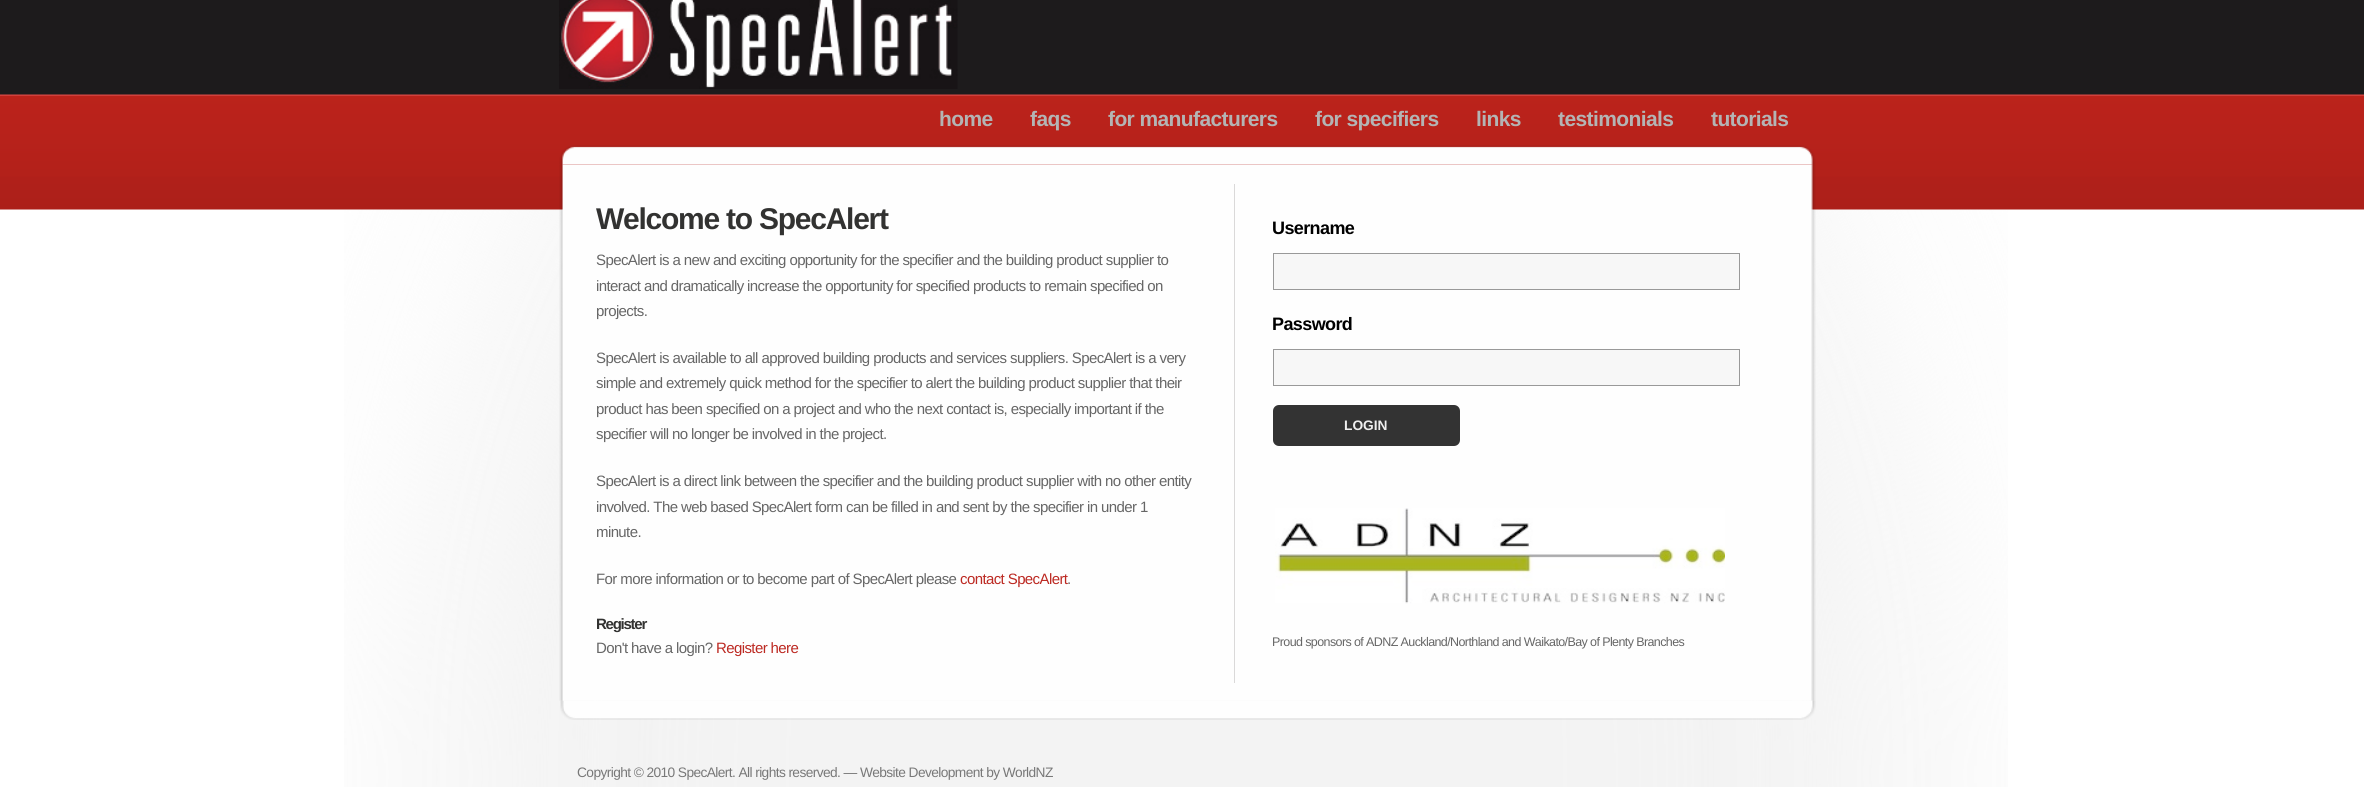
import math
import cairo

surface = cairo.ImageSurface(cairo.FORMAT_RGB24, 2364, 787)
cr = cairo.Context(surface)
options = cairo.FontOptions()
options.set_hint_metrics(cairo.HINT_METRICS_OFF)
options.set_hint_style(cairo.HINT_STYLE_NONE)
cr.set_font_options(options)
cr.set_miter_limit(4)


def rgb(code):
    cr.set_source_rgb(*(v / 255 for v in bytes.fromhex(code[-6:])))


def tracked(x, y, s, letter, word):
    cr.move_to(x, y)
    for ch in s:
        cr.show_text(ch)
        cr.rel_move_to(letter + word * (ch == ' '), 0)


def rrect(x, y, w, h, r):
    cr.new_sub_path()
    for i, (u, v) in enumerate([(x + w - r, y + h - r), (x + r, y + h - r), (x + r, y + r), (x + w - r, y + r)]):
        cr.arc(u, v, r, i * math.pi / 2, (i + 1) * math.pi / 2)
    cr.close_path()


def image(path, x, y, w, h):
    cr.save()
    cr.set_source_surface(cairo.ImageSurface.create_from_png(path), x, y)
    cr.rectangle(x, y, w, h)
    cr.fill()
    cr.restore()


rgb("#ffffff")
cr.paint()
image("img/1.png", 344, 209, 1664, 578)
image("img/2.png", 0, 0, 2364, 210)
image("img/3.png", 559, 0, 399, 89)
image("img/4.png", 559, 145, 1257, 20)
image("img/5.png", 559, 164, 1257, 537)
rgb("#dad9d9")
cr.rectangle(1234, 184, 1, 499)
cr.fill()
rgb("#f7f7f7")
cr.rectangle(1273.5, 253.5, 466, 36)
cr.fill_preserve()
rgb("#999999")
cr.set_line_width(1)
cr.stroke()
rgb("#f7f7f7")
cr.rectangle(1273.5, 349.5, 466, 36)
cr.fill_preserve()
rgb("#999999")
cr.stroke()
rgb("#333333")
rrect(1273, 405, 187, 41, 6)
cr.fill()
image("img/6.png", 1275, 508, 450, 96)
image("img/7.png", 560, 700, 1256, 20)
cr.select_font_face("Liberation Sans", cairo.FONT_SLANT_NORMAL, cairo.FONT_WEIGHT_BOLD)
cr.set_font_size(21)
rgb("#b4b4b4")
for x, y, s in [
    (939, 126, "home"),
    (1030, 126, "faqs"),
    (1108, 126, "for manufacturers"),
    (1315, 126, "for specifiers"),
    (1476, 126, "links"),
    (1558, 126, "testimonials"),
    (1711, 126, "tutorials"),
]:
    tracked(x, y, s, -0.6, 0)
cr.set_font_size(30)
rgb("#323231")
tracked(596, 229, "Welcome to SpecAlert", -1.25, 0)
cr.select_font_face("Liberation Sans")
cr.set_font_size(15)
rgb("#666666")
for x, y, s in [
    (596, 265, "SpecAlert is a new and exciting opportunity for the specifier and the building product supplier to"),
    (596, 291, "interact and dramatically increase the opportunity for specified products to remain specified on"),
    (596, 316, "projects."),
    (596, 363, "SpecAlert is available to all approved building products and services suppliers. SpecAlert is a very"),
    (596, 388, "simple and extremely quick method for the specifier to alert the building product supplier that their"),
    (596, 414, "product has been specified on a project and who the next contact is, especially important if the"),
    (596, 439, "specifier will no longer be involved in the project."),
    (596, 486, "SpecAlert is a direct link between the specifier and the building product supplier with no other entity"),
    (596, 512, "involved. The web based SpecAlert form can be filled in and sent by the specifier in under 1"),
    (596, 537, "minute."),
    (596, 584, "For more information or to become part of SpecAlert please"),
]:
    tracked(x, y, s, -0.6, 0)
rgb("#bc2922")
tracked(960, 584, "contact SpecAlert", -0.6, 0)
rgb("#666666")
tracked(1067, 584, ".", -0.6, 0)
cr.select_font_face("Liberation Sans", cairo.FONT_SLANT_NORMAL, cairo.FONT_WEIGHT_BOLD)
rgb("#323231")
tracked(596, 629, "Register", -1.25, 0)
cr.select_font_face("Liberation Sans")
rgb("#666666")
tracked(596, 653, "Don't have a login?", -0.6, 0)
rgb("#bc2922")
tracked(716, 653, "Register here", -0.6, 0)
cr.select_font_face("Liberation Sans", cairo.FONT_SLANT_NORMAL, cairo.FONT_WEIGHT_BOLD)
cr.set_font_size(18)
rgb("#000000")
tracked(1272, 234, "Username", -0.6, 0)
tracked(1272, 330, "Password", -0.6, 0)
cr.set_font_size(13.75)
rgb("#efefef")
cr.move_to(1344, 430)
cr.show_text("LOGIN")
cr.select_font_face("Liberation Sans")
cr.set_font_size(12.5)
rgb("#666666")
tracked(1272, 646, "Proud sponsors of ADNZ Auckland/Northland and Waikato/Bay of Plenty Branches", -0.6, 0)
cr.set_font_size(13.75)
rgb("#787878")
tracked(577, 777, "Copyright © 2010 SpecAlert. All rights reserved. — Website Development by WorldNZ", -0.6, 0)
surface.write_to_png("page.png")
